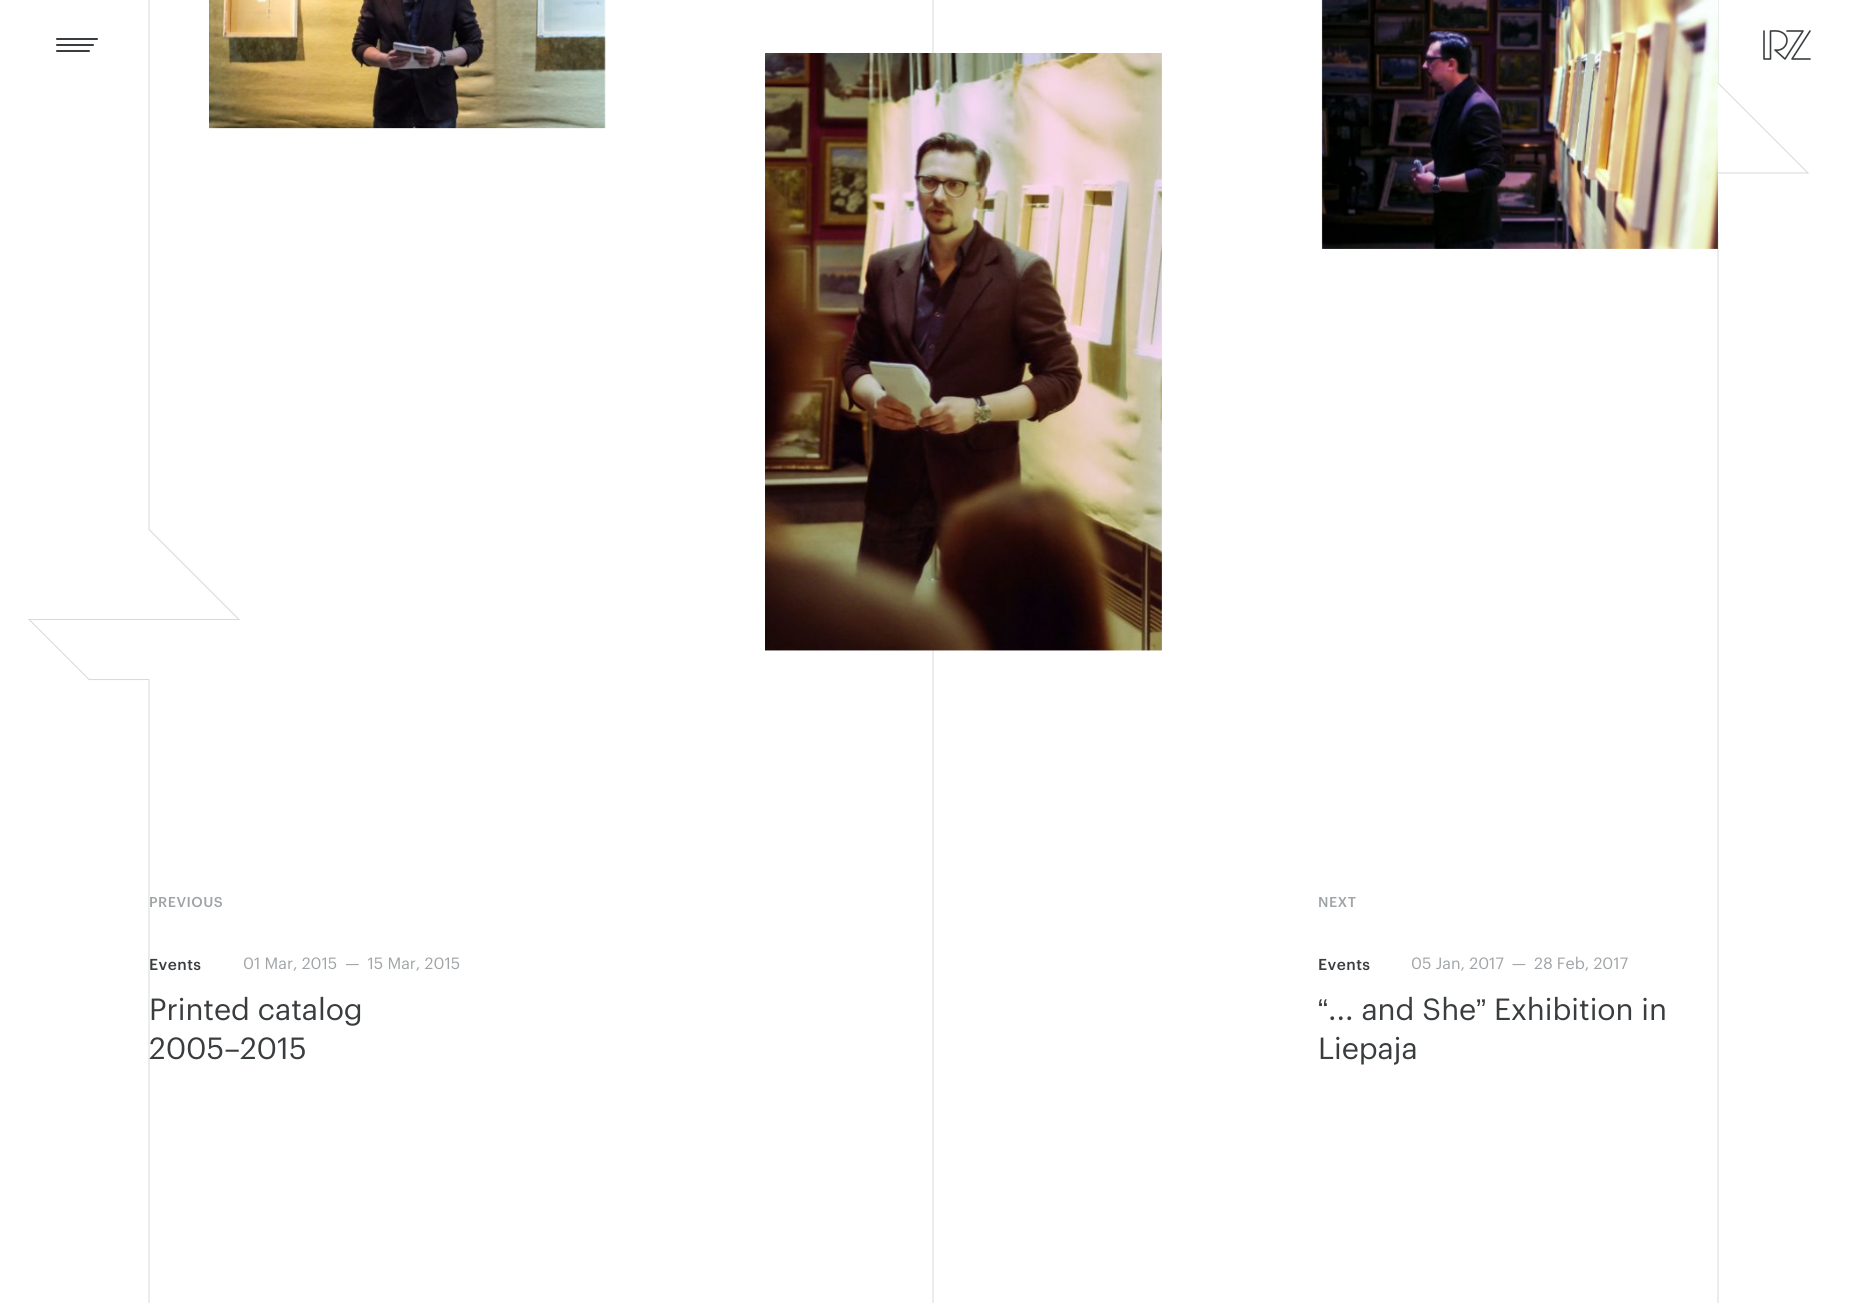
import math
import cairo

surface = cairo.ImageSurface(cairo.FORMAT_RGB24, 1867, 1303)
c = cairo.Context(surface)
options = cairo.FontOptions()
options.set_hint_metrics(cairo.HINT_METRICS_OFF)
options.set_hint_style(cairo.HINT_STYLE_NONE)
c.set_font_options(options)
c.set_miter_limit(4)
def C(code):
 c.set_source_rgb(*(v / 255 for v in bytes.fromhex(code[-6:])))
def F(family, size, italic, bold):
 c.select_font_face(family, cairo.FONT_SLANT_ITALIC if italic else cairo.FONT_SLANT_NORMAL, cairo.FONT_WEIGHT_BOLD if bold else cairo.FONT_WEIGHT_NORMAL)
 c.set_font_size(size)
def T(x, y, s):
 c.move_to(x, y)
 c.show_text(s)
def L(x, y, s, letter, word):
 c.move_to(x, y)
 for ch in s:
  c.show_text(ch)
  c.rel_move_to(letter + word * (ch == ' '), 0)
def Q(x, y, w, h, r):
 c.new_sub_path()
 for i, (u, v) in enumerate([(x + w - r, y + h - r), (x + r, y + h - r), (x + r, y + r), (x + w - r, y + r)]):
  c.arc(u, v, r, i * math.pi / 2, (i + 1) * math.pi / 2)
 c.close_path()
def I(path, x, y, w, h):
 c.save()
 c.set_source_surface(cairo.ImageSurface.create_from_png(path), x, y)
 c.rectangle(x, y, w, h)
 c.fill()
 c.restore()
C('ffffff')
c.paint()
c.new_path()
c.move_to(149,-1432.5)
c.line_to(149,-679)
c.line_to(29,-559)
c.line_to(134.5,-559)
c.line_to(101,-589)
c.line_to(101,-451)
c.line_to(149,-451)
c.line_to(149,529.5)
c.line_to(239,619.5)
c.line_to(29,619.5)
c.line_to(89,679.5)
c.line_to(149,679.5)
c.line_to(149,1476)
c.line_to(53,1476)
c.line_to(53,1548)
c.line_to(305,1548)
c.line_to(305,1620)
c.line_to(149,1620)
c.line_to(149,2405)
c.line_to(52,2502.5)
c.line_to(116.5,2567)
c.line_to(181.5,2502.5)
c.line_to(246,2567)
c.line_to(149,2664.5)
c.line_to(149,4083)
c.line_to(281,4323)
c.line_to(77,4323)
c.line_to(149,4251)
c.line_to(149,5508.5)
c.line_to(68.5,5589)
c.line_to(68.5,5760.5)
c.line_to(221,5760.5)
c.line_to(149,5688.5)
c.line_to(149,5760.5)
C('dadcdc')
c.set_line_width(1.1)
c.stroke()
C('3a3d3f')
Q(56,38,42,2,1)
c.fill()
Q(56,44,38,2,1)
c.fill()
Q(56,50,34,2,1)
c.fill()
c.new_path()
c.move_to(1718,-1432.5)
c.line_to(1718,-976)
c.line_to(1646,-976)
c.line_to(1646,-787.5)
c.line_to(1790,-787.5)
c.line_to(1790,-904)
c.line_to(1718,-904)
c.line_to(1718,83)
c.line_to(1808,173)
c.line_to(1598,173)
c.line_to(1658,233)
c.line_to(1718,233)
c.line_to(1718,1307)
c.line_to(1814,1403)
c.line_to(1766,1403)
c.line_to(1808,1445)
c.line_to(1664,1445)
c.line_to(1664,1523)
c.line_to(1718,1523)
c.line_to(1718,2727.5)
c.line_to(1850,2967.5)
c.line_to(1646,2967.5)
c.line_to(1718,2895.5)
c.line_to(1718,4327)
c.line_to(1621,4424)
c.line_to(1685.5,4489)
c.line_to(1750.5,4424)
c.line_to(1815,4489)
c.line_to(1718,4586)
c.line_to(1718,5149)
c.line_to(1766,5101)
c.line_to(1646,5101)
c.line_to(1646,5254.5)
c.line_to(1718,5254.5)
C('dadcdc')
c.stroke()
c.new_path()
c.move_to(1810,59)
c.line_to(1792,59)
c.line_to(1810,31)
c.move_to(1764,31)
c.line_to(1764,59)
c.line_to(1770.5,59)
c.line_to(1770.5,31)
c.curve_to(1774,31,1778,30.5,1781,32)
c.curve_to(1792,36.5,1786.5,52,1775,50)
c.line_to(1785,59)
c.line_to(1803,31)
c.line_to(1787,31)
C('3a3d3f')
c.set_line_width(1.6)
c.set_line_cap(cairo.LINE_CAP_ROUND)
c.set_line_join(cairo.LINE_JOIN_ROUND)
c.stroke()
c.new_path()
c.move_to(933,-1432.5)
c.line_to(933,-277)
c.line_to(1058,-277)
c.line_to(808,-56.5)
c.line_to(933,-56.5)
c.line_to(933,471)
c.line_to(1023,561)
c.line_to(813,561)
c.line_to(873,621)
c.line_to(933,621)
c.line_to(933,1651)
c.line_to(1029,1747)
c.line_to(981,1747)
c.line_to(1023,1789)
c.line_to(879,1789)
c.line_to(879,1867)
c.line_to(933,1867)
c.line_to(933,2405)
c.line_to(1058,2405)
c.line_to(808,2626)
c.line_to(933,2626)
c.line_to(933,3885)
c.line_to(813,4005)
c.line_to(918.5,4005)
c.line_to(885,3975)
c.line_to(885,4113)
c.line_to(933,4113)
c.line_to(933,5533)
c.line_to(852.5,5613.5)
c.line_to(852.5,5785)
c.line_to(1005,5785)
c.line_to(933,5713)
c.line_to(933,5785)
C('dadcdc')
c.set_line_width(1.1)
c.set_line_cap(cairo.LINE_CAP_BUTT)
c.set_line_join(cairo.LINE_JOIN_MITER)
c.stroke()
I('1.png',209,0,397,129)
I('2.png',765,53,397,598)
I('3.png',1321,0,397,249)
F('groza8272 Medium',14,0,0)
C('a0a4a7')
L(149,907,'PREVIOUS',.5,0)
F('groza8272 Medium',15.5,0,0)
C('3a3d3f')
L(149,970,'Events',.5,0)
F('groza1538',16,0,0)
C('a0a4a7')
T(243,969,'01 Mar, 2015 — 15 Mar, 2015')
F('groza1538',30,0,0)
C('3a3d3f')
T(149,1020,'Printed catalog')
T(149,1059,'2005–2015')
F('groza8272 Medium',14,0,0)
C('a0a4a7')
L(1318,907,'NEXT',.5,0)
F('groza8272 Medium',15.5,0,0)
C('3a3d3f')
L(1318,970,'Events',.5,0)
F('groza1538',16,0,0)
C('a0a4a7')
T(1411,969,'05 Jan, 2017 — 28 Feb, 2017')
F('Liberation Sans',30,0,0)
C('3a3d3f')
T(1318,1020,'“')
F('groza1538',30,0,0)
T(1328,1020,'... and She')
F('Liberation Sans',30,0,0)
T(1476,1020,'”')
F('groza1538',30,0,0)
T(1494,1020,'Exhibition in')
T(1318,1059,'Liepaja')
surface.write_to_png('o.png')
